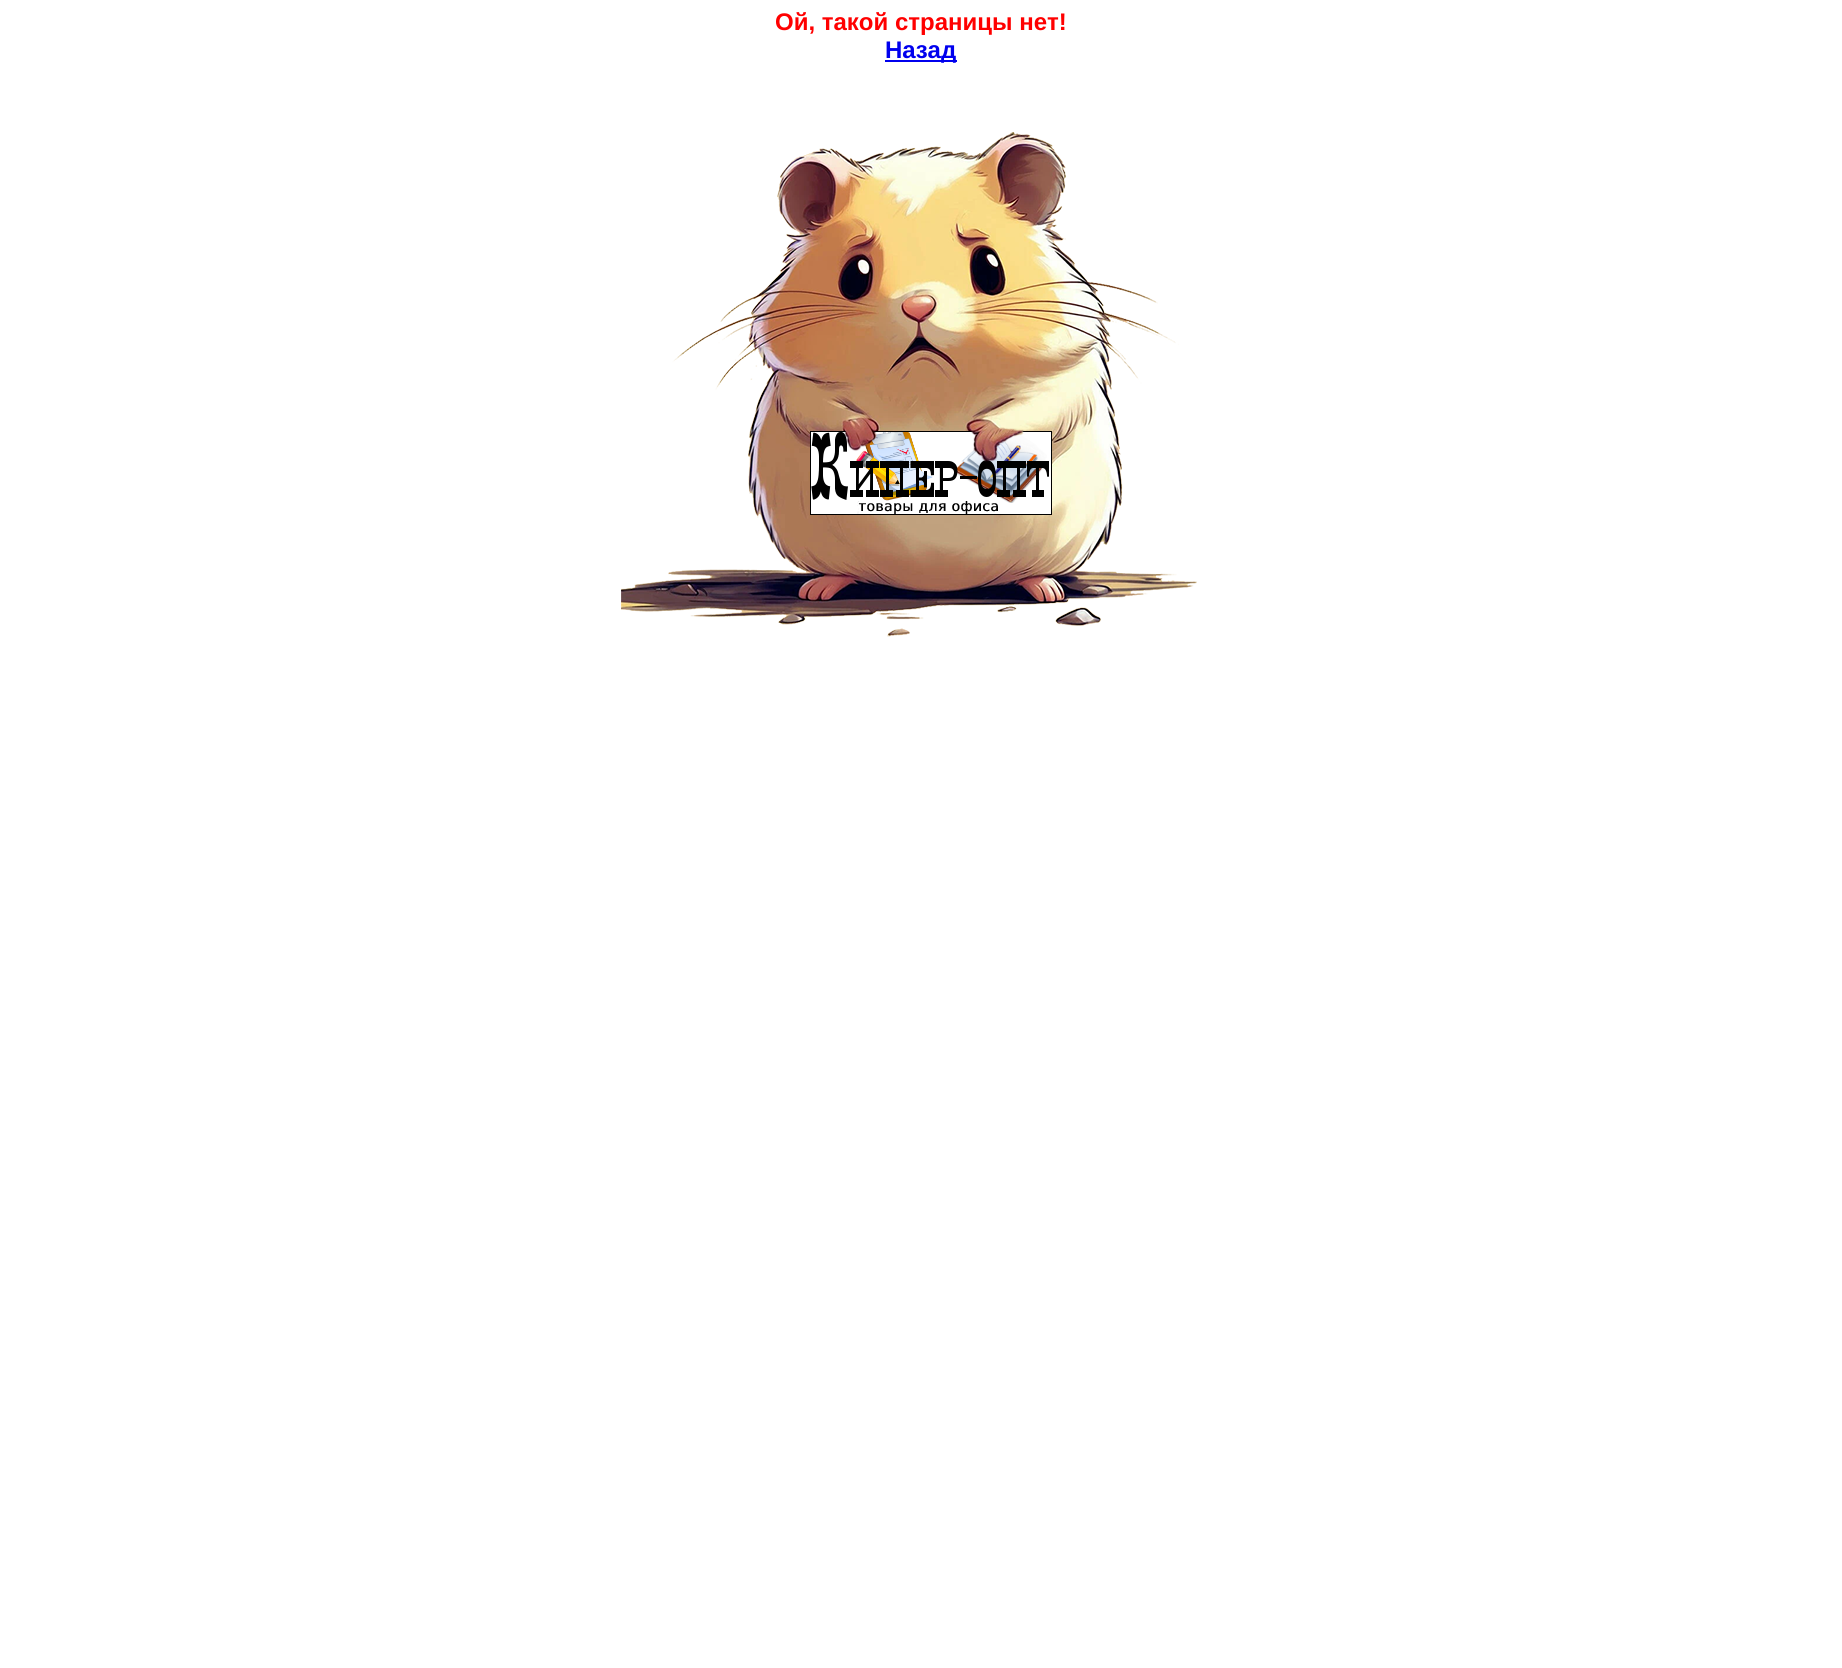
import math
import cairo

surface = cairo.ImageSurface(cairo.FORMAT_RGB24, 1842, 1668)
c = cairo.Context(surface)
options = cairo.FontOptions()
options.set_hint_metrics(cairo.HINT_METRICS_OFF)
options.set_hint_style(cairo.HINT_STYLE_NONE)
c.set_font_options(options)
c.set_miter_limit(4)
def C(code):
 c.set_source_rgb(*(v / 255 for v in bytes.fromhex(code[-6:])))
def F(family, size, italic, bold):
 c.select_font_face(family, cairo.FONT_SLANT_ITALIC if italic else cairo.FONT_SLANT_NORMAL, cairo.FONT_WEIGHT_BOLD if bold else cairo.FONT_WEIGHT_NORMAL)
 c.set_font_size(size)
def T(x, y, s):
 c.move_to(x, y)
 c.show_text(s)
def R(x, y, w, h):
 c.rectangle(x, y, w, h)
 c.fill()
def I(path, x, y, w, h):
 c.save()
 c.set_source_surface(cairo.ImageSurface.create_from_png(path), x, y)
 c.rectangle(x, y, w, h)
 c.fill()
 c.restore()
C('ffffff')
c.paint()
F('Liberation Sans',24,0,1)
C('ff0000')
T(775,30,'Ой, такой страницы нет!')
C('0000ee')
R(885,60,72,2)
T(885,58,'Назад')
I('1.png',621,132,576,505)
surface.write_to_png('o.png')
